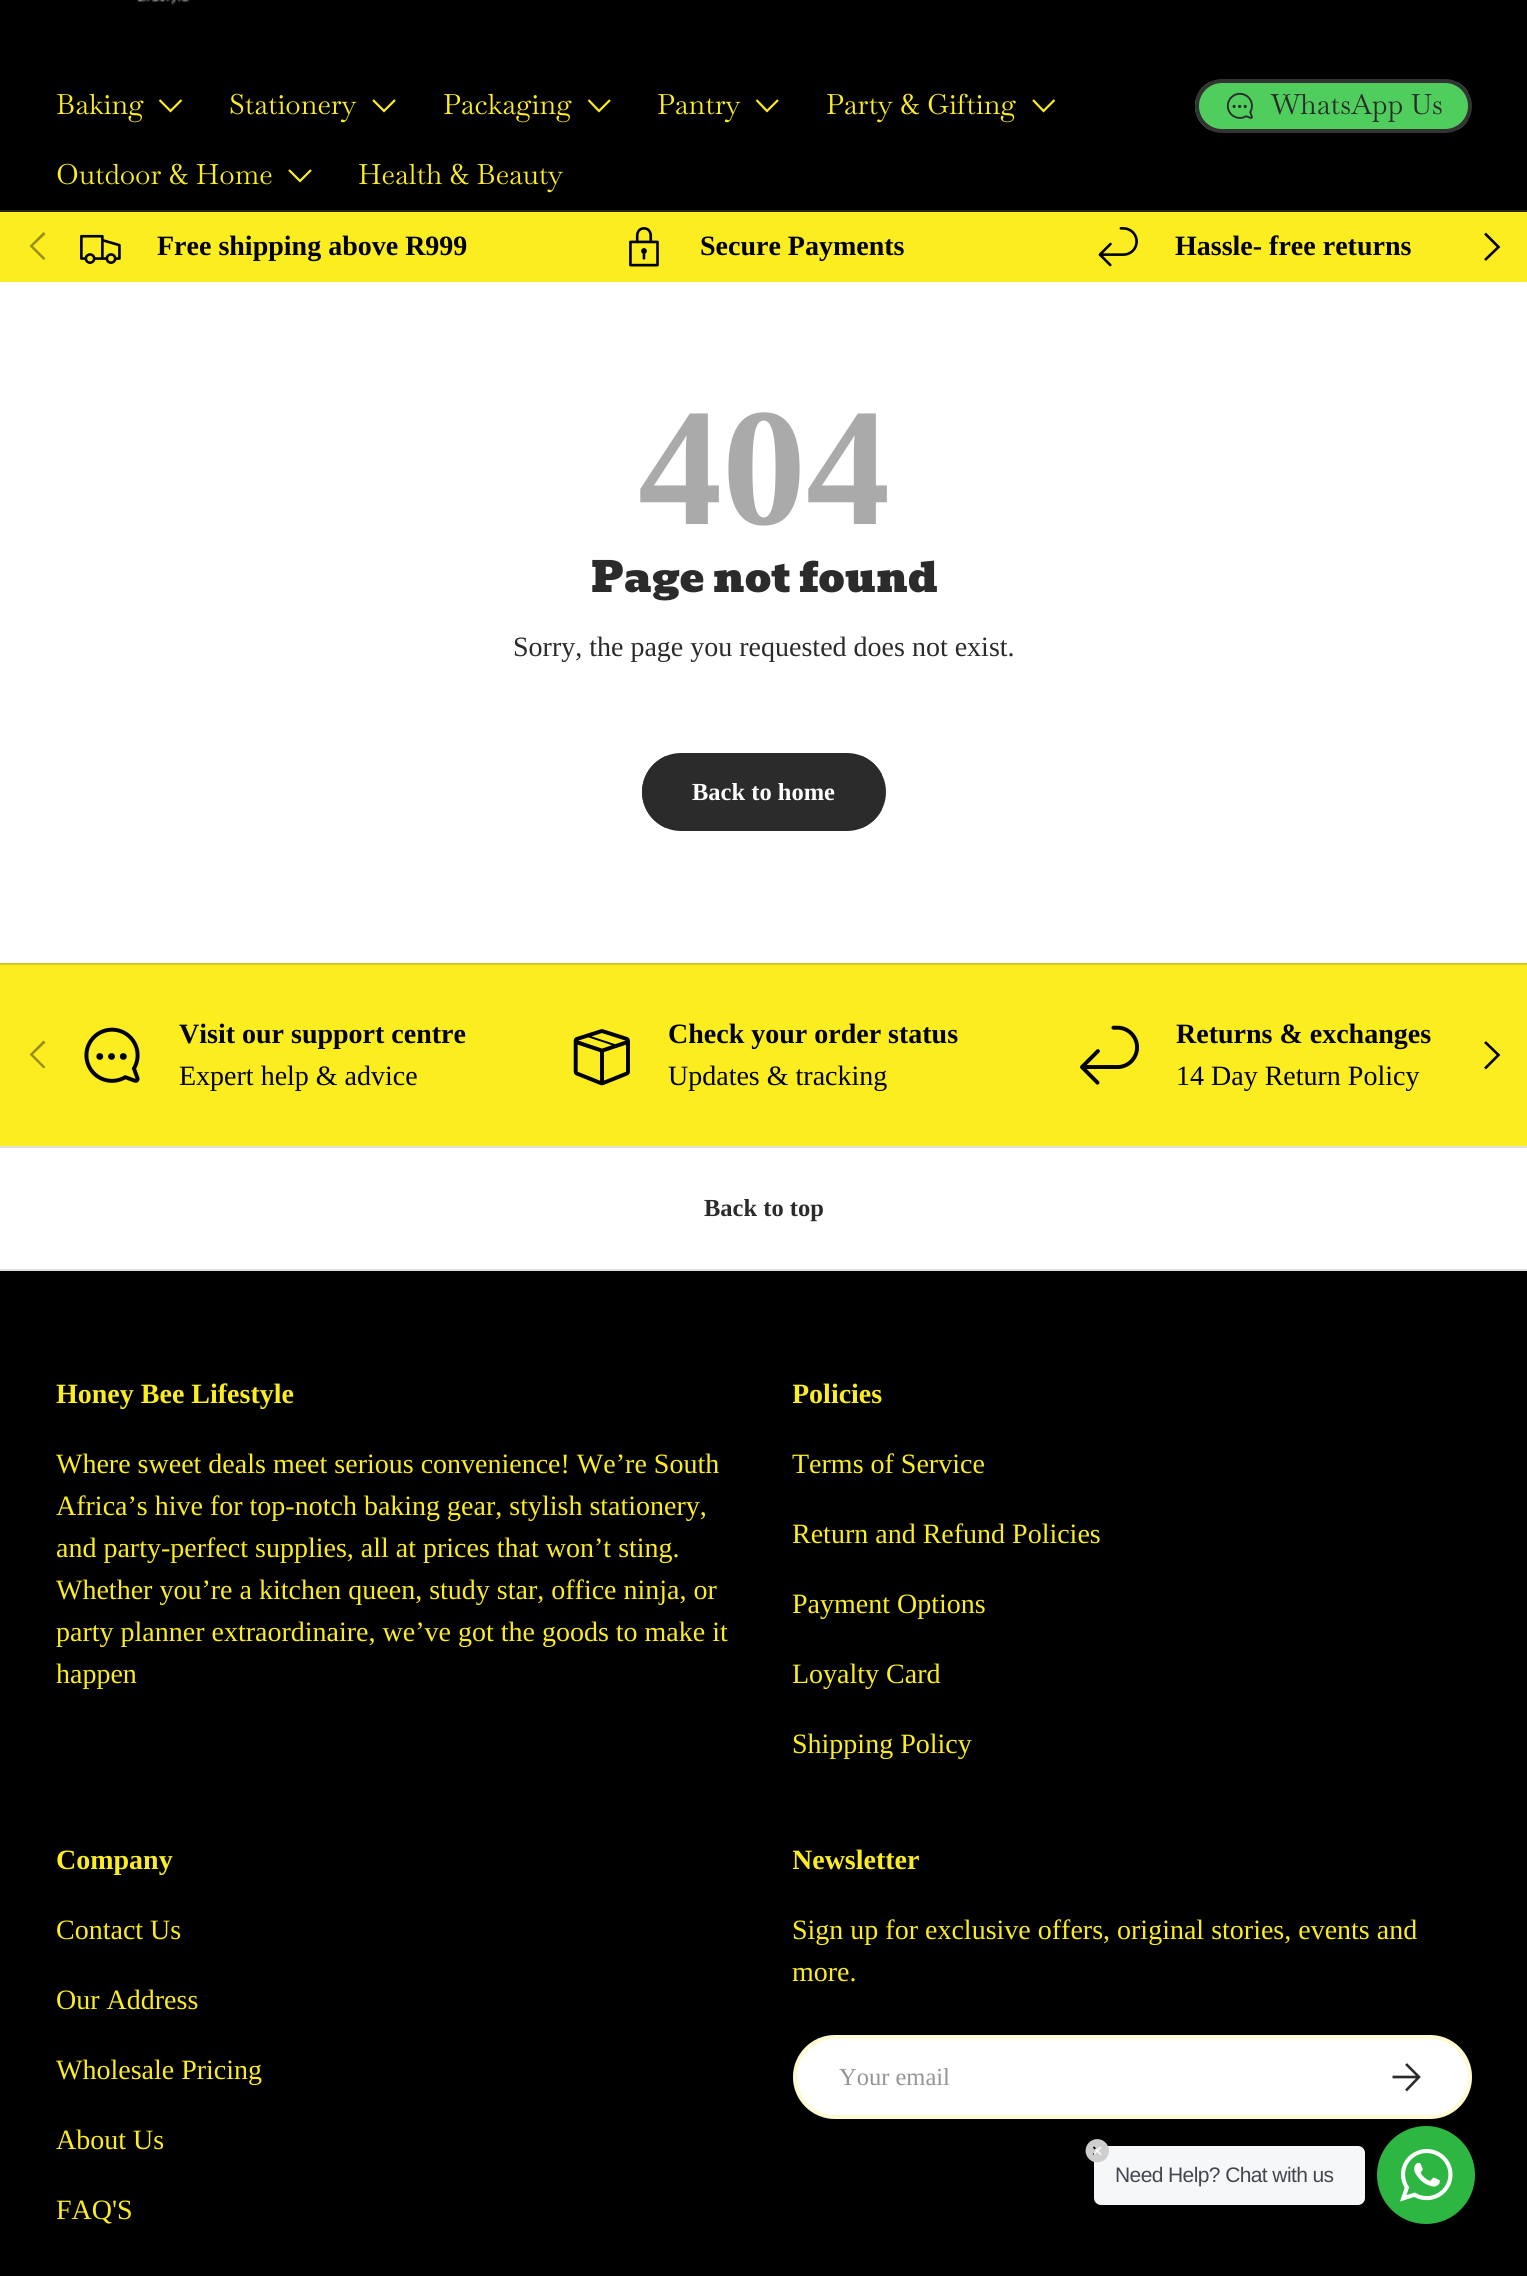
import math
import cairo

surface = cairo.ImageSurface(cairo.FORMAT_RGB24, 1527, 2276)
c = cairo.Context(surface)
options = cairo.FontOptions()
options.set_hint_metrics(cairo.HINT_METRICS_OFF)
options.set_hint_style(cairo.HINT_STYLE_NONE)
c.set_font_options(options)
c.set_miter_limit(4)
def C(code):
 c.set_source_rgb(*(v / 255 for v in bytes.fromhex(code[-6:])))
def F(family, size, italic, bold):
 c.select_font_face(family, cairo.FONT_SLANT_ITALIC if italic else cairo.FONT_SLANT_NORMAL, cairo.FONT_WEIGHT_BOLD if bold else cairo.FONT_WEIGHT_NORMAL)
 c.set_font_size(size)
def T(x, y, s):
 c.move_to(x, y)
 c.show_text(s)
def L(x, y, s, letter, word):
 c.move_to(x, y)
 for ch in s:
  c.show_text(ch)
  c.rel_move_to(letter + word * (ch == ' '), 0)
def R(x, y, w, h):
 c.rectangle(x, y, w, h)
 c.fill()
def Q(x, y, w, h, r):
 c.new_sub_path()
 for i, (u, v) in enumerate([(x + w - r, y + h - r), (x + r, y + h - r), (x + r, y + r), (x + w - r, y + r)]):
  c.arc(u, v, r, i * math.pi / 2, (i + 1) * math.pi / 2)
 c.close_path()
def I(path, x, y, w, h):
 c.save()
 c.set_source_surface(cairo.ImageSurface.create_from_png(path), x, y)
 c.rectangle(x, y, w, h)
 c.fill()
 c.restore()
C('ffffff')
c.paint()
C('000000')
R(0,0,1527,210)
C('262405')
R(0,210,1527,2)
I('1.png',136,0,54,6)
F('Baskervville',28,0,0)
C('fbed20')
T(56,114,'Baking')
c.new_path()
c.move_to(181.5,100)
c.line_to(170.5,111)
c.line_to(159.5,100)
c.set_line_width(2.2)
c.stroke()
T(229,114,'Stationery')
c.new_path()
c.move_to(395,100)
c.line_to(384,111)
c.line_to(373,100)
c.stroke()
T(443,114,'Packaging')
c.new_path()
c.move_to(610,100)
c.line_to(599,111)
c.line_to(588.5,100)
c.stroke()
T(657,114,'Pantry')
c.new_path()
c.move_to(778,100)
c.line_to(767,111)
c.line_to(756.5,100)
c.stroke()
T(826,114,'Party & Gifting')
c.new_path()
c.move_to(1054.5,100)
c.line_to(1043.5,111)
c.line_to(1033,100)
c.stroke()
T(56,184,'Outdoor & Home')
c.new_path()
c.move_to(311,170)
c.line_to(300,181)
c.line_to(289,170)
c.stroke()
T(358,184,'Health & Beauty')
c.save()
Q(1195,79,277,54,27)
c.clip()
gradient = cairo.LinearGradient(678,10,1450,202)
gradient.add_color_stop_rgba(.6,0.329,0.729,0.373,1)
gradient.add_color_stop_rgba(.6,0.31,0.808,0.365,1)
gradient.add_color_stop_rgba(1,0.31,0.808,0.365,1)
c.set_source(gradient)
R(1195,82,273,48)
c.restore()
Q(1197,81,273,50,25)
C('333333')
c.set_line_width(4)
c.stroke()
I('2.png',1226,92,27,27)
C('2a2b2a')
T(1271,114,'WhatsApp Us')
C('fbed20')
R(0,212,1527,70)
C('978e13')
c.new_path()
c.move_to(29.5,246)
c.line_to(43.5,232)
c.line_to(45.5,234)
c.line_to(33,246)
c.line_to(45.5,258.5)
c.line_to(43.5,260)
c.close_path()
c.fill()
c.new_path()
c.move_to(1485,233.5)
c.line_to(1498.5,247)
c.line_to(1485,260)
C('000000')
c.set_line_width(2.6)
c.stroke()
I('3.png',80,234,41,30)
F('Liberation Serif',28,0,1)
T(157,255,'Free shipping above R999')
I('4.png',629,227,30,40)
T(700,255,'Secure Payments')
I('5.png',1098,227,40,40)
T(1175,255,'Hassle- free returns')
F('Liberation Serif',168,0,1)
C('aaaaaa')
T(638,524,'404')
F('Bevan',41.25,0,0)
C('2a2b2a')
T(591,592,'Page not found')
F('Liberation Serif',28,0,0)
T(513,656,'Sorry, the page you requested does not exist.')
c.save()
Q(642,753,244,78,39)
c.clip()
gradient = cairo.LinearGradient(186,707,870,877)
gradient.add_color_stop_rgba(.6,0.322,0.325,0.322,1)
gradient.add_color_stop_rgba(.6,0.165,0.169,0.165,1)
gradient.add_color_stop_rgba(1,0.165,0.169,0.165,1)
c.set_source(gradient)
R(642,756,240,72)
c.restore()
Q(644,755,240,74,37)
c.set_line_width(4)
c.stroke()
F('Liberation Serif',24.5,0,1)
C('ffffff')
T(692,800,'Back to home')
C('fbed20')
R(0,965,1527,181)
C('d5c91b')
R(0,963,1527,2)
I('6.png',84,1027,56,56)
F('Liberation Serif',28,0,1)
C('000000')
T(179,1043,'Visit our support centre')
F('Liberation Serif',28,0,0)
T(179,1085,'Expert help & advice')
I('7.png',573,1029,57,57)
F('Liberation Serif',28,0,1)
T(668,1043,'Check your order status')
F('Liberation Serif',28,0,0)
T(668,1085,'Updates & tracking')
I('8.png',1080,1025,59,60)
F('Liberation Serif',28,0,1)
T(1176,1043,'Returns & exchanges')
F('Liberation Serif',28,0,0)
T(1176,1085,'14 Day Return Policy')
C('978e13')
c.new_path()
c.move_to(29.5,1054.5)
c.line_to(43.5,1040.5)
c.line_to(45.5,1042.5)
c.line_to(33,1054.5)
c.line_to(45.5,1067)
c.line_to(43.5,1068.5)
c.close_path()
c.fill()
c.new_path()
c.move_to(1485,1042)
c.line_to(1498.5,1055)
c.line_to(1485,1068.5)
C('000000')
c.set_line_width(2.6)
c.stroke()
C('dfdfdf')
R(0,1146,1527,2)
R(0,1269,1527,2)
F('Liberation Serif',24.5,0,1)
C('2a2b2a')
T(704,1216,'Back to top')
C('000000')
R(0,1271,1527,1005)
F('Liberation Serif',28,0,1)
C('fbed20')
T(56,1403,'Honey Bee Lifestyle')
F('Liberation Serif',28,0,0)
T(56,1473,'Where sweet deals meet serious convenience! We’re South')
T(56,1515,'Africa’s hive for top-notch baking gear, stylish stationery,')
T(56,1557,'and party-perfect supplies, all at prices that won’t sting.')
T(56,1599,'Whether you’re a kitchen queen, study star, office ninja, or')
T(56,1641,'party planner extraordinaire, we’ve got the goods to make it')
T(56,1683,'happen')
c.save()
c.rectangle(793,1374,679,70)
c.clip()
F('Liberation Serif',28,0,1)
T(792,1403,'Policies')
c.restore()
T(792,1473,'Terms of Service')
T(792,1543,'Return and Refund Policies')
T(792,1613,'Payment Options')
T(792,1683,'Loyalty Card')
T(792,1753,'Shipping Policy')
F('Liberation Serif',28,0,1)
T(56,1869,'Company')
F('Liberation Serif',28,0,0)
T(56,1939,'Contact Us')
T(56,2009,'Our Address')
T(56,2079,'Wholesale Pricing')
T(56,2149,'About Us')
T(56,2219,'FAQ\'S')
c.save()
c.rectangle(793,1839,679,70)
c.clip()
F('Liberation Serif',28,0,1)
T(792,1869,'Newsletter')
c.restore()
T(792,1939,'Sign up for exclusive offers, original stories, events and')
T(792,1981,'more.')
C('ffffff')
Q(793,2035,679,84,42)
c.fill()
Q(795,2037,675,80,40)
c.set_source_rgba(0.984,0.929,0.125,0.2)
c.set_line_width(4)
c.stroke()
F('Liberation Serif',24.5,0,0)
C('959595')
T(839,2085,'Your email')
c.new_path()
c.move_to(1392.5,2077)
c.line_to(1418,2077)
c.move_to(1406,2064)
c.line_to(1419,2077)
c.line_to(1406,2090.5)
C('2a2b2a')
c.set_line_width(2.6)
c.stroke()
C('f5f7f9')
Q(1094,2146,271,59,7)
c.fill()
I('9.png',1085,2139,24,24)
F('Liberation Sans',21,0,0)
C('43474e')
L(1115,2182,'Need Help? Chat with us',-.6,0)
C('2db742')
c.new_path()
c.arc(1426,2175,49,0,2 * math.pi)
c.fill()
I('10.png',1400,2149,53,53)
surface.write_to_png('o.png')
